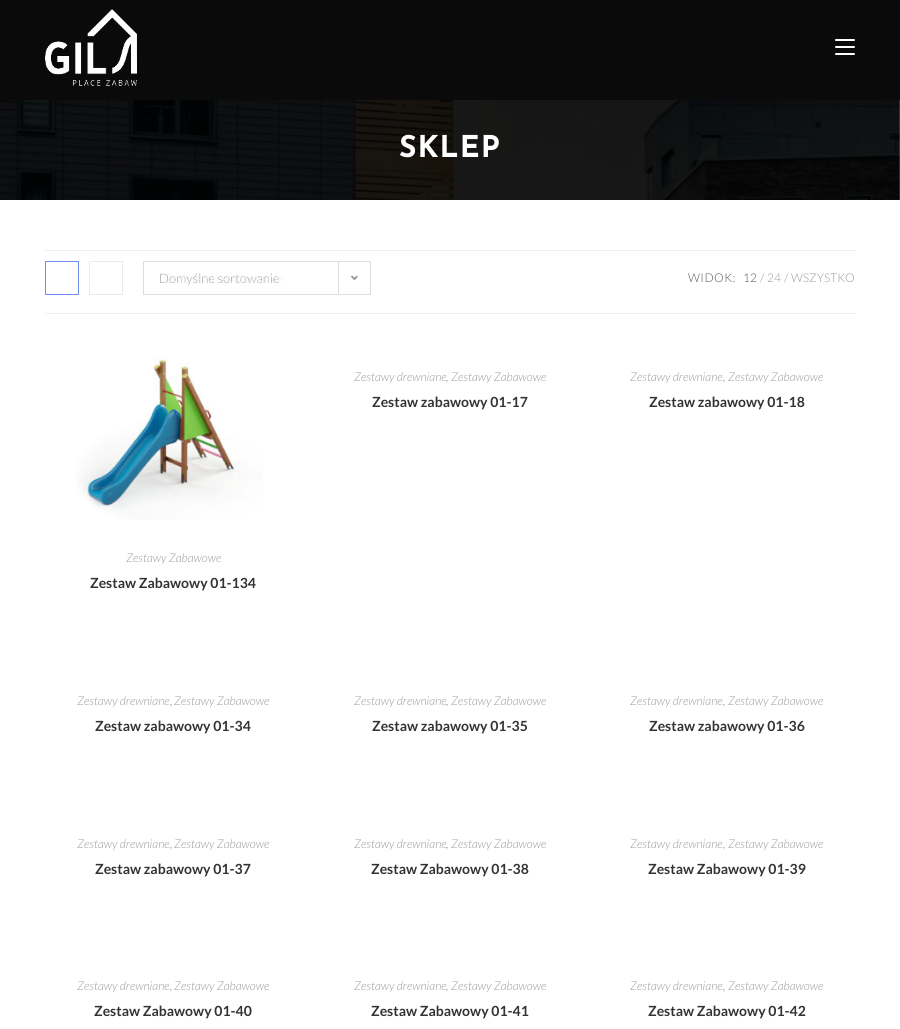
import math
import cairo

surface = cairo.ImageSurface(cairo.FORMAT_RGB24, 900, 1029)
c = cairo.Context(surface)
options = cairo.FontOptions()
options.set_hint_metrics(cairo.HINT_METRICS_OFF)
options.set_hint_style(cairo.HINT_STYLE_NONE)
c.set_font_options(options)
c.set_miter_limit(4)
def C(code):
 c.set_source_rgb(*(v / 255 for v in bytes.fromhex(code[-6:])))
def F(family, size, italic, bold):
 c.select_font_face(family, cairo.FONT_SLANT_ITALIC if italic else cairo.FONT_SLANT_NORMAL, cairo.FONT_WEIGHT_BOLD if bold else cairo.FONT_WEIGHT_NORMAL)
 c.set_font_size(size)
def T(x, y, s):
 c.move_to(x, y)
 c.show_text(s)
def L(x, y, s, letter, word):
 c.move_to(x, y)
 for ch in s:
  c.show_text(ch)
  c.rel_move_to(letter + word * (ch == ' '), 0)
def R(x, y, w, h):
 c.rectangle(x, y, w, h)
 c.fill()
def Q(x, y, w, h, r):
 c.new_sub_path()
 for i, (u, v) in enumerate([(x + w - r, y + h - r), (x + r, y + h - r), (x + r, y + r), (x + w - r, y + r)]):
  c.arc(u, v, r, i * math.pi / 2, (i + 1) * math.pi / 2)
 c.close_path()
def I(path, x, y, w, h):
 c.save()
 c.set_source_surface(cairo.ImageSurface.create_from_png(path), x, y)
 c.rectangle(x, y, w, h)
 c.fill()
 c.restore()
C('ffffff')
c.paint()
C('0a0a0a')
R(0,0,900,100)
I('1.png',45,9,92,77)
C('ffffff')
Q(835,46,20,2,1)
c.fill()
Q(835,39,20,2,1)
c.fill()
Q(835,53,20,2,1)
c.fill()
I('2.png',0,100,900,100)
F('Josefin Sans',30,0,1)
L(399,157,'SKLEP',1,0)
C('eeeeee')
R(45,250,810,1)
R(45,313,810,1)
c.rectangle(45.5,261.5,33,33)
C('6e8fef')
c.set_line_width(1)
c.stroke()
c.rectangle(89.5,261.5,33,33)
C('eaeaea')
c.stroke()
c.rectangle(143.5,261.5,227,33)
C('dddddd')
c.stroke()
F('Lato Light',13,0,0)
C('999999')
T(159,283,'Domyślne sortowanie')
C('dddddd')
R(338,262,1,32)
I('3.png',351,275,7,5)
c.new_path()
c.move_to(358,276)
c.line_to(362,280)
c.line_to(366,276)
C('ffffff')
c.set_line_width(2)
c.stroke()
C('eeeeee')
T(163,283,'Domyślne sortowanie')
F('Lato Light',12,0,0)
C('555555')
L(688,282,'WIDOK:',.5,0)
T(743,282,'12')
C('999999')
T(760,282,'/')
T(767,282,'24')
T(784,282,'/')
T(791,282,'WSZYSTKO')
F('Lato Light',12,1,0)
T(354,381,'Zestawy drewniane')
C('777777')
T(446,381,',')
C('999999')
T(451,381,'Zestawy Zabawowe')
F('Lato',14,0,1)
C('333333')
T(372,407,'Zestaw zabawowy 01-17')
F('Lato Light',12,1,0)
C('999999')
T(630,381,'Zestawy drewniane')
C('777777')
T(723,381,',')
C('999999')
T(728,381,'Zestawy Zabawowe')
F('Lato',14,0,1)
C('333333')
T(649,407,'Zestaw zabawowy 01-18')
I('4.png',76,355,186,165)
I('5.png',262,362,1,155)
F('Lato Light',12,1,0)
C('999999')
T(126,562,'Zestawy Zabawowe')
F('Lato',14,0,1)
C('333333')
T(90,588,'Zestaw Zabawowy 01-134')
F('Lato Light',12,1,0)
C('999999')
T(77,705,'Zestawy drewniane')
C('777777')
T(170,705,',')
C('999999')
T(174,705,'Zestawy Zabawowe')
F('Lato',14,0,1)
C('333333')
T(95,731,'Zestaw zabawowy 01-34')
F('Lato Light',12,1,0)
C('999999')
T(354,705,'Zestawy drewniane')
C('777777')
T(446,705,',')
C('999999')
T(451,705,'Zestawy Zabawowe')
F('Lato',14,0,1)
C('333333')
T(372,731,'Zestaw zabawowy 01-35')
F('Lato Light',12,1,0)
C('999999')
T(630,705,'Zestawy drewniane')
C('777777')
T(723,705,',')
C('999999')
T(728,705,'Zestawy Zabawowe')
F('Lato',14,0,1)
C('333333')
T(649,731,'Zestaw zabawowy 01-36')
F('Lato Light',12,1,0)
C('999999')
T(77,848,'Zestawy drewniane')
C('777777')
T(170,848,',')
C('999999')
T(174,848,'Zestawy Zabawowe')
F('Lato',14,0,1)
C('333333')
T(95,874,'Zestaw zabawowy 01-37')
F('Lato Light',12,1,0)
C('999999')
T(354,848,'Zestawy drewniane')
C('777777')
T(446,848,',')
C('999999')
T(451,848,'Zestawy Zabawowe')
F('Lato',14,0,1)
C('333333')
T(371,874,'Zestaw Zabawowy 01-38')
F('Lato Light',12,1,0)
C('999999')
T(630,848,'Zestawy drewniane')
C('777777')
T(723,848,',')
C('999999')
T(728,848,'Zestawy Zabawowe')
F('Lato',14,0,1)
C('333333')
T(648,874,'Zestaw Zabawowy 01-39')
F('Lato Light',12,1,0)
C('999999')
T(77,990,'Zestawy drewniane')
C('777777')
T(170,990,',')
C('999999')
T(174,990,'Zestawy Zabawowe')
F('Lato',14,0,1)
C('333333')
T(94,1016,'Zestaw Zabawowy 01-40')
F('Lato Light',12,1,0)
C('999999')
T(354,990,'Zestawy drewniane')
C('777777')
T(446,990,',')
C('999999')
T(451,990,'Zestawy Zabawowe')
F('Lato',14,0,1)
C('333333')
T(371,1016,'Zestaw Zabawowy 01-41')
F('Lato Light',12,1,0)
C('999999')
T(630,990,'Zestawy drewniane')
C('777777')
T(723,990,',')
C('999999')
T(728,990,'Zestawy Zabawowe')
F('Lato',14,0,1)
C('333333')
T(648,1016,'Zestaw Zabawowy 01-42')
surface.write_to_png('o.png')
